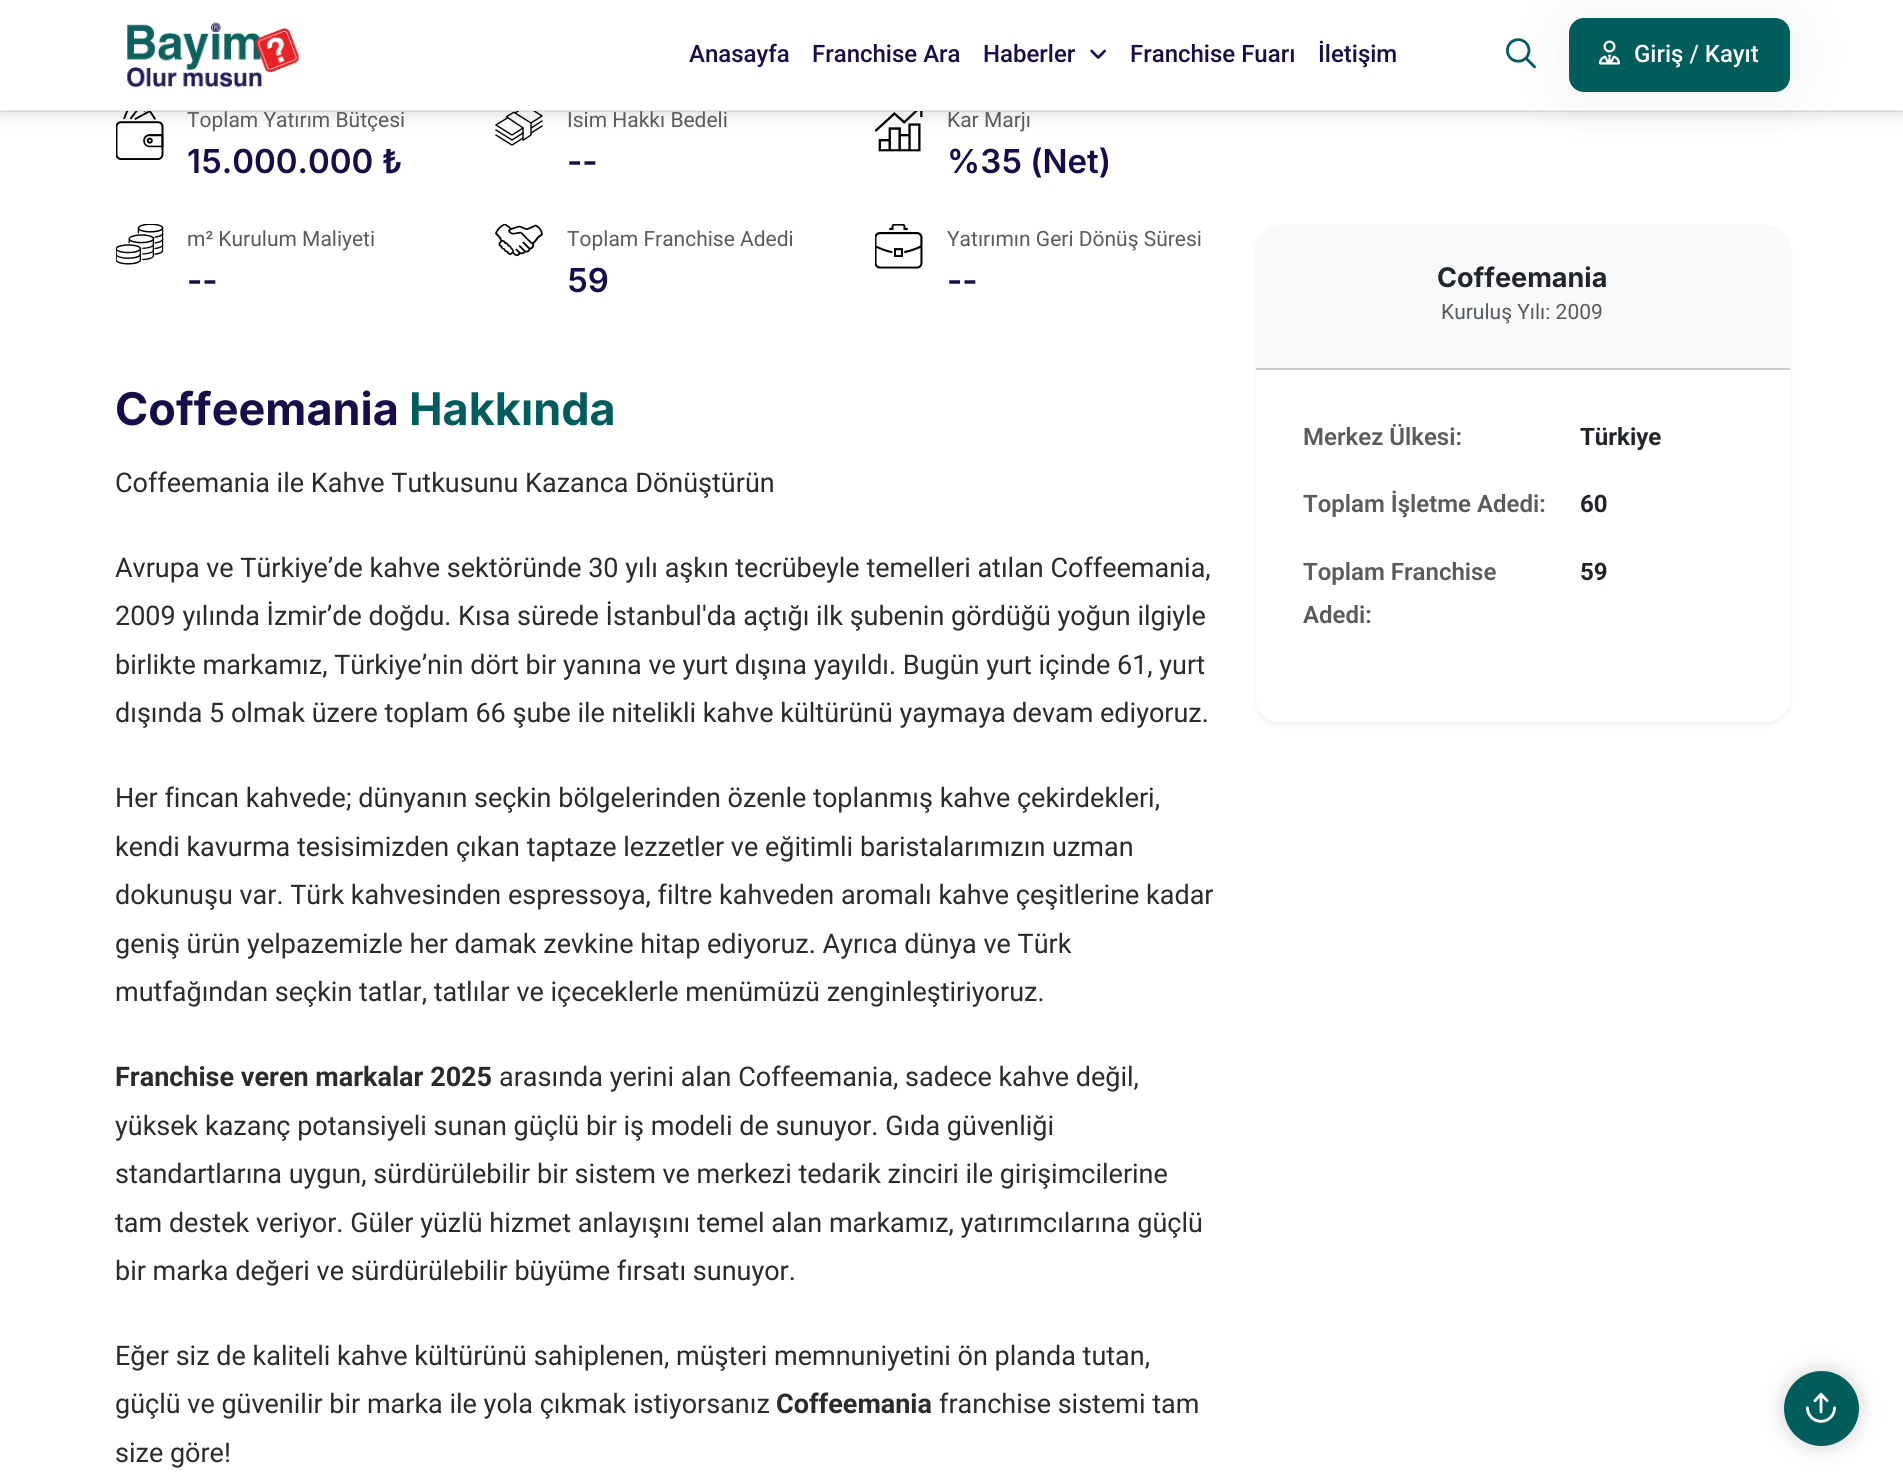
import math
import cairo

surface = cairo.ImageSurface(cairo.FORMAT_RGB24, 1903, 1476)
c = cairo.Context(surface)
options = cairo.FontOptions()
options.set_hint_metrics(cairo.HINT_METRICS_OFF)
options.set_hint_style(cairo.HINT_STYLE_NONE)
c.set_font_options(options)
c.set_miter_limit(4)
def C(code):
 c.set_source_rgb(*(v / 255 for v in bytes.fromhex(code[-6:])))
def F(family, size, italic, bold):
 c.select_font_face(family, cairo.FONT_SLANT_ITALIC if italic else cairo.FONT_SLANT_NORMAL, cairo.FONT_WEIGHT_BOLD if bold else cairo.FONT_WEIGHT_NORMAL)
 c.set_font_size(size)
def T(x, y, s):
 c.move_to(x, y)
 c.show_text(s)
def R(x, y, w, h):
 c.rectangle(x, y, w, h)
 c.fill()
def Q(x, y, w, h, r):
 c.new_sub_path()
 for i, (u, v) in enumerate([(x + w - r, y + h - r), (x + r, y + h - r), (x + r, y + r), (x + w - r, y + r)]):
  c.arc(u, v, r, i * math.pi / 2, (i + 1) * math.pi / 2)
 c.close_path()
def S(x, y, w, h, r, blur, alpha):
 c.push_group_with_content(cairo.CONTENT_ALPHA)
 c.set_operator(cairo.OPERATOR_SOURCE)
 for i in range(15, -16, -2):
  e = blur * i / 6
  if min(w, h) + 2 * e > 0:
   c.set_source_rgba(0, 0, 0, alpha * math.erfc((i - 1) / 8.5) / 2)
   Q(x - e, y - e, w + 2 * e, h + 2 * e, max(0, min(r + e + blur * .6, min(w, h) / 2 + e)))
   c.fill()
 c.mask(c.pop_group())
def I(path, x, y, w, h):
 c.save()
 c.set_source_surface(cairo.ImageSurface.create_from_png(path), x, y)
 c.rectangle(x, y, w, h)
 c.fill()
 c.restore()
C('ffffff')
c.paint()
I('5.png',116,111,48,49)
I('6.png',495,111,48,35)
I('7.png',875,111,48,41)
C('000000')
S(0,0,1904,111,0,11,.17)
F('Roboto',21,0,0)
C('595c5f')
T(567,127,'İsim Hakkı Bedeli')
C('ffffff')
R(0,0,1903,111)
c.set_source_rgba(0,0,0,0.08)
R(0,110,1903,2)
I('1.png',127,22,173,66)
F('Roboto Medium',24,0,0)
C('160e4b')
T(689,62,'Anasayfa')
T(812,62,'Franchise Ara')
T(983,62,'Haberler')
I('2.png',1090,49,16,10)
T(1130,62,'Franchise Fuarı')
T(1318,62,'İletişim')
I('3.png',1506,38,30,31)
C('000000')
S(1562,11,235,88,23,30,.05)
C('005d5b')
Q(1569,18,221,74,15)
c.fill()
I('4.png',1599,40,21,25)
C('ffffff')
T(1634,62,'Giriş / Kayıt')
F('Roboto',21,0,0)
C('595c5f')
T(187,127,'Toplam Yatırım Bütçesi')
F('Inter SemiBold',33,0,0)
C('160e4b')
T(187,173,'15.000.000 ₺')
T(567,173,'--')
F('Roboto',21,0,0)
C('595c5f')
T(947,127,'Kar Marjı')
F('Inter SemiBold',33,0,0)
C('160e4b')
T(947,173,'%35 (Net)')
I('8.png',116,224,48,41)
F('Roboto',21,0,0)
C('595c5f')
T(187,246,'m² Kurulum Maliyeti')
F('Inter SemiBold',33,0,0)
C('160e4b')
T(187,292,'--')
I('9.png',495,224,48,33)
F('Roboto',21,0,0)
C('595c5f')
T(567,246,'Toplam Franchise Adedi')
F('Inter SemiBold',33,0,0)
C('160e4b')
T(567,292,'59')
I('10.png',875,224,48,45)
F('Roboto',21,0,0)
C('595c5f')
T(947,246,'Yatırımın Geri Dönüş Süresi')
F('Inter SemiBold',33,0,0)
C('160e4b')
T(947,292,'--')
F('Inter',45,0,1)
T(115,425,'Coffeemania')
C('005d5b')
T(409,425,'Hakkında')
F('Roboto',27,0,0)
C('2b2b2b')
T(115,492,'Coffeemania ile Kahve Tutkusunu Kazanca Dönüştürün')
T(115,577,'Avrupa ve Türkiye’de kahve sektöründe 30 yılı aşkın tecrübeyle temelleri atılan Coffeemania,')
T(115,625,'2009 yılında İzmir’de doğdu. Kısa sürede İstanbul\'da açtığı ilk şubenin gördüğü yoğun ilgiyle')
T(115,674,'birlikte markamız, Türkiye’nin dört bir yanına ve yurt dışına yayıldı. Bugün yurt içinde 61, yurt')
T(115,722,'dışında 5 olmak üzere toplam 66 şube ile nitelikli kahve kültürünü yaymaya devam ediyoruz.')
T(115,807,'Her fincan kahvede; dünyanın seçkin bölgelerinden özenle toplanmış kahve çekirdekleri,')
T(115,856,'kendi kavurma tesisimizden çıkan taptaze lezzetler ve eğitimli baristalarımızın uzman')
T(115,904,'dokunuşu var. Türk kahvesinden espressoya, filtre kahveden aromalı kahve çeşitlerine kadar')
T(115,953,'geniş ürün yelpazemizle her damak zevkine hitap ediyoruz. Ayrıca dünya ve Türk')
T(115,1001,'mutfağından seçkin tatlar, tatlılar ve içeceklerle menümüzü zenginleştiriyoruz.')
F('Roboto',27,0,1)
T(115,1086,'Franchise veren markalar 2025')
F('Roboto',27,0,0)
T(499,1086,'arasında yerini alan Coffeemania, sadece kahve değil,')
T(115,1135,'yüksek kazanç potansiyeli sunan güçlü bir iş modeli de sunuyor. Gıda güvenliği')
T(115,1183,'standartlarına uygun, sürdürülebilir bir sistem ve merkezi tedarik zinciri ile girişimcilerine')
T(115,1232,'tam destek veriyor. Güler yüzlü hizmet anlayışını temel alan markamız, yatırımcılarına güçlü')
T(115,1280,'bir marka değeri ve sürdürülebilir büyüme fırsatı sunuyor.')
T(115,1365,'Eğer siz de kaliteli kahve kültürünü sahiplenen, müşteri memnuniyetini ön planda tutan,')
T(115,1413,'güçlü ve güvenilir bir marka ile yola çıkmak istiyorsanız')
F('Roboto',27,0,1)
T(776,1413,'Coffeemania')
F('Roboto',27,0,0)
T(939,1413,'franchise sistemi tam')
T(115,1462,'size göre!')
C('000000')
S(1256,228,534,497,24,3,.07)
C('ffffff')
Q(1256,225,534,497,24)
c.fill()
C('f8f9fa')
c.new_path()
c.move_to(1280,225)
c.line_to(1766,225)
c.curve_to(1779.5,225,1790,235.5,1790,249)
c.line_to(1790,368)
c.line_to(1256,368)
c.line_to(1256,249)
c.curve_to(1256,235.5,1266.5,225,1280,225)
c.close_path()
c.fill()
F('Inter',27,0,1)
C('212529')
T(1437,287,'Coffeemania')
F('Roboto',21,0,0)
C('595c5f')
T(1441,319,'Kuruluş Yılı: 2009')
C('c8c9ca')
R(1256,368,534,2)
F('Roboto SemiBold',24,0,0)
C('595c5f')
T(1303,445,'Merkez Ülkesi:')
F('Roboto',24,0,1)
C('212529')
T(1580,445,'Türkiye')
F('Roboto SemiBold',24,0,0)
C('595c5f')
T(1303,512,'Toplam İşletme Adedi:')
F('Roboto',24,0,1)
C('212529')
T(1580,512,'60')
F('Roboto SemiBold',24,0,0)
C('595c5f')
T(1303,580,'Toplam Franchise')
T(1303,623,'Adedi:')
F('Roboto',24,0,1)
C('212529')
T(1580,580,'59')
C('000000')
S(1784,1371,75,75,37.5,11,.17)
C('005d5b')
c.arc(1821.5,1408.5,37.5,0,2 * math.pi)
c.fill()
I('11.png',1806,1392,30,31)
surface.write_to_png('o.png')
